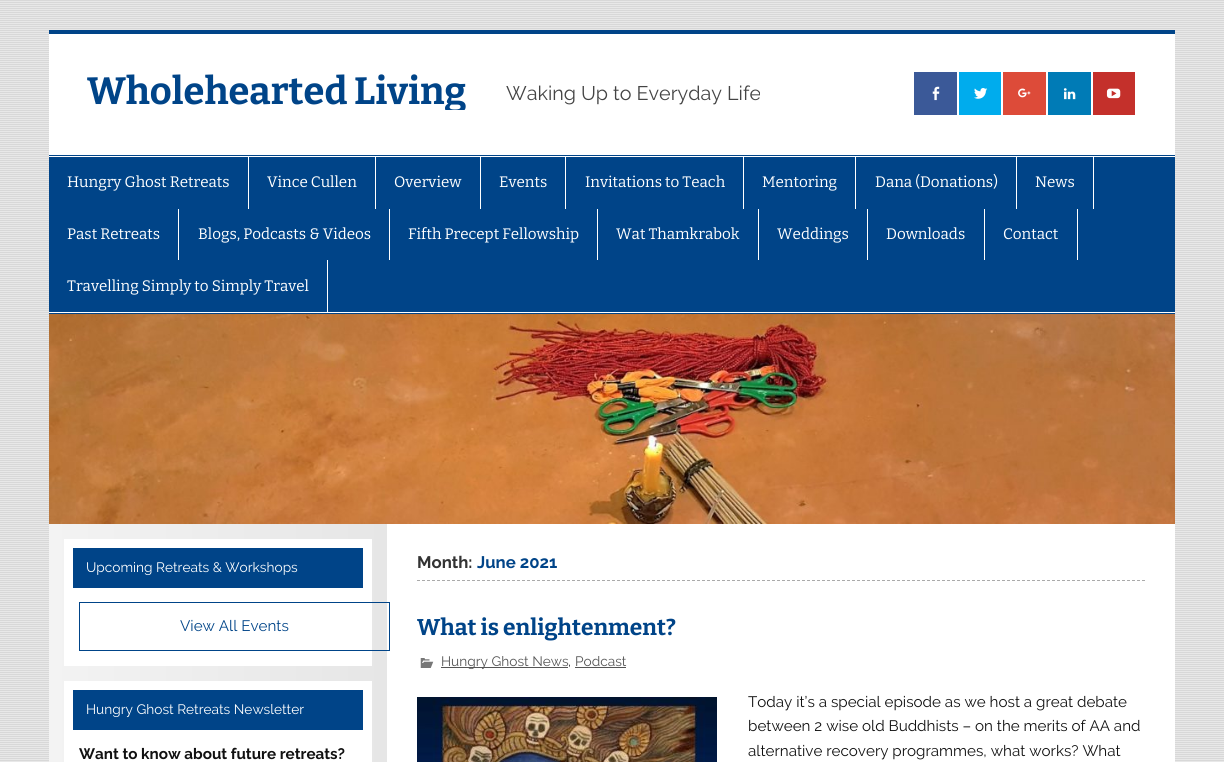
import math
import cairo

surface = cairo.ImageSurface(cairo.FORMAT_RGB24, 1224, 762)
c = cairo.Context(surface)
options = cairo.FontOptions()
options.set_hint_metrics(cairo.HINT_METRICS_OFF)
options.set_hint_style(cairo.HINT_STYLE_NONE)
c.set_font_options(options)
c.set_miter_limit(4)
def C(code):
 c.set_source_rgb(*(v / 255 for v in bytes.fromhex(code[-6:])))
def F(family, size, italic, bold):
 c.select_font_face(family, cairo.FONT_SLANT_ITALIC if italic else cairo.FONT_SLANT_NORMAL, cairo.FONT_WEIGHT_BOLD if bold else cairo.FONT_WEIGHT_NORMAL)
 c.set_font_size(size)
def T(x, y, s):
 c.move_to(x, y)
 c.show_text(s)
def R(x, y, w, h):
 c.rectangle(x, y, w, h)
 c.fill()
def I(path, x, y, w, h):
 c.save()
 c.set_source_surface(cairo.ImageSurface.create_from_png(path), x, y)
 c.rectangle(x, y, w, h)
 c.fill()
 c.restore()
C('ffffff')
c.paint()
I('1.png',0,0,1224,762)
C('ffffff')
R(49,34,1126,728)
C('004488')
R(49,30,1126,4)
F('Bitter',38,0,1)
T(87,104,'Wholehearted')
c.save()
c.rectangle(87,72,674,38)
c.clip()
T(354,104,'Living')
c.restore()
F('Raleway',19.75,0,0)
C('444444')
T(506,100,'Waking Up to Everyday Life')
C('3b5998')
R(914,72,43,43)
I('2.png',932,86,8,15)
C('00aced')
R(959,72,42,43)
I('3.png',974,88,14,11)
C('dd4b39')
R(1003,72,43,43)
I('4.png',1018,88,13,10)
C('007bb6')
R(1048,72,43,43)
I('5.png',1063,88,13,12)
C('c4302b')
R(1093,72,42,43)
I('6.png',1106,88,15,11)
C('004488')
R(49,155,1126,1)
R(49,313,1126,1)
R(49,157,1126,155)
C('ffffff')
R(248,157,1,52)
F('Bitter',15.2,0,0)
T(67,187,'Hungry Ghost Retreats')
R(375,157,1,52)
T(267,187,'Vince Cullen')
R(480,157,1,52)
T(394,187,'Overview')
R(565,157,1,52)
T(499,187,'Events')
R(743,157,1,52)
T(585,187,'Invitations to Teach')
R(855,157,1,52)
T(762,187,'Mentoring')
R(1016,157,1,52)
T(875,187,'Dana (Donations)')
R(1093,157,1,52)
T(1035,187,'News')
R(178,209,1,51)
T(67,239,'Past Retreats')
R(389,209,1,51)
T(198,239,'Blogs, Podcasts & Videos')
R(597,209,1,51)
T(408,239,'Fifth Precept Fellowship')
R(758,209,1,51)
T(616,239,'Wat Thamkrabok')
R(867,209,1,51)
T(777,239,'Weddings')
R(984,209,1,51)
T(886,239,'Downloads')
R(1077,209,1,51)
T(1003,239,'Contact')
R(327,260,1,52)
T(67,291,'Travelling Simply to Simply Travel')
I('7.png',49,314,1126,210)
gradient = cairo.LinearGradient(49,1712,387,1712)
gradient.add_color_stop_rgba(0,0.953,0.953,0.953,1)
gradient.add_color_stop_rgba(1,0.902,0.902,0.902,1)
c.set_source(gradient)
R(49,524,338,238)
C('ffffff')
R(64,539,308,127)
C('004488')
R(73,548,290,40)
F('Raleway',13.7,0,0)
C('ffffff')
T(86,572,'Upcoming Retreats & Workshops')
c.rectangle(79.5,602.5,310,48)
C('004488')
c.set_line_width(1)
c.stroke()
F('Raleway',15.2,0,0)
T(180,631,'View All Events')
C('ffffff')
R(64,681,308,81)
C('004488')
R(73,690,290,40)
F('Raleway',13.7,0,0)
C('ffffff')
T(86,714,'Hungry Ghost Retreats Newsletter')
F('Raleway',15.2,0,1)
C('111111')
T(79,759,'Want to know about future retreats?')
c.new_path()
c.move_to(417,580.5)
c.line_to(1145,580.5)
C('aaaaaa')
c.set_dash([3,2])
c.stroke()
F('Raleway',16.75,0,1)
C('333333')
T(417,568,'Month:')
C('004488')
T(477,568,'June 2021')
F('Bitter',22.75,0,1)
T(417,635,'What is enlightenment?')
I('8.png',420,658,14,10)
C('555555')
R(441,667,127,1)
F('Raleway',13.7,0,0)
T(441,666,'Hungry Ghost News')
C('333333')
T(568,666,',')
C('555555')
T(575,666,'Podcast')
R(575,667,51,1)
I('9.png',417,697,300,65)
F('Raleway',15.2,0,0)
C('111111')
T(748,707,'Today it’s a special episode as we host a great debate')
T(748,731,'between 2 wise old Buddhists – on the merits of AA and')
T(748,756,'alternative recovery programmes, what works? What')
surface.write_to_png('o.png')
